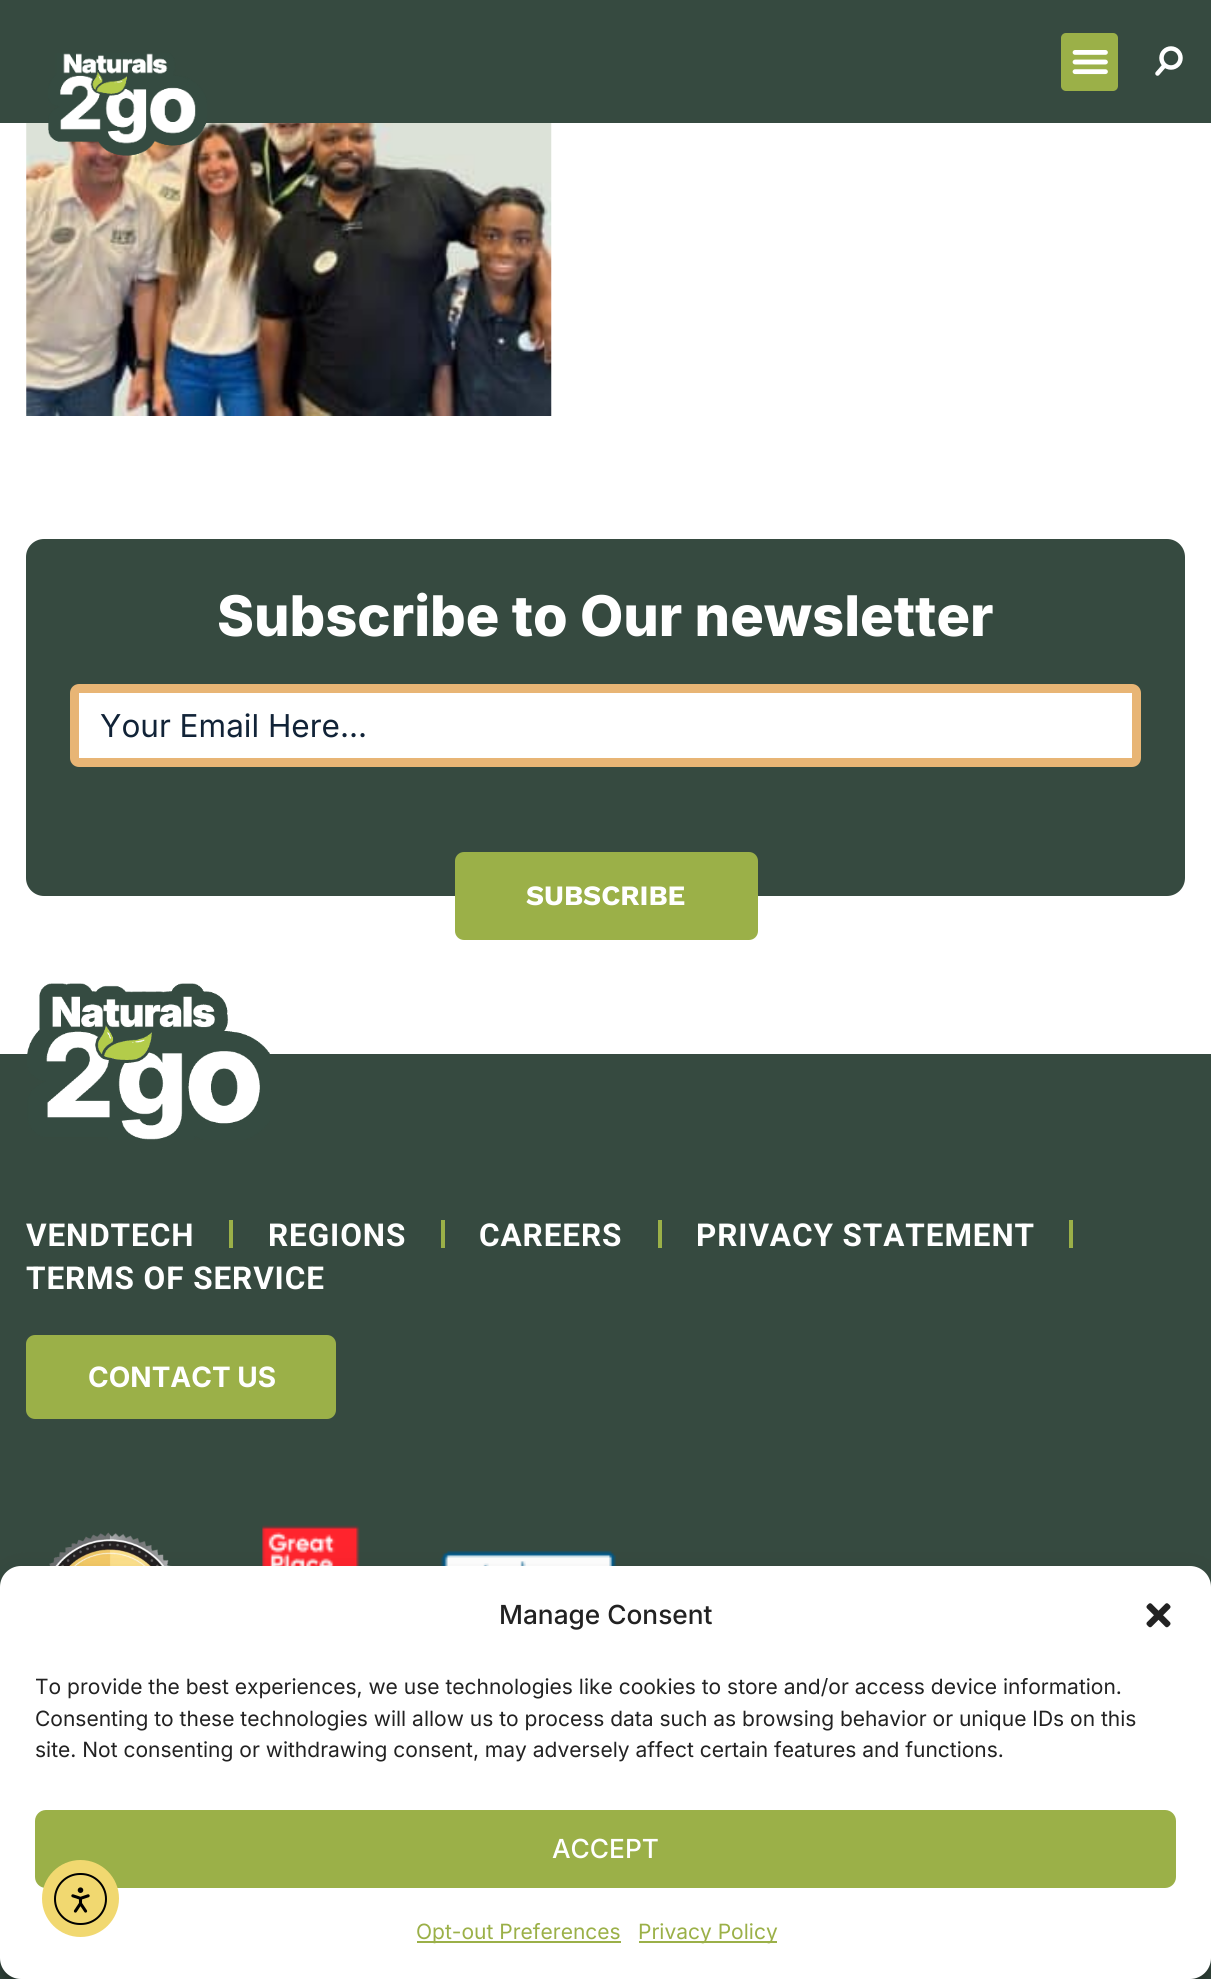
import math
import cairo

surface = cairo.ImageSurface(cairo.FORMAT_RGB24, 1211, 1979)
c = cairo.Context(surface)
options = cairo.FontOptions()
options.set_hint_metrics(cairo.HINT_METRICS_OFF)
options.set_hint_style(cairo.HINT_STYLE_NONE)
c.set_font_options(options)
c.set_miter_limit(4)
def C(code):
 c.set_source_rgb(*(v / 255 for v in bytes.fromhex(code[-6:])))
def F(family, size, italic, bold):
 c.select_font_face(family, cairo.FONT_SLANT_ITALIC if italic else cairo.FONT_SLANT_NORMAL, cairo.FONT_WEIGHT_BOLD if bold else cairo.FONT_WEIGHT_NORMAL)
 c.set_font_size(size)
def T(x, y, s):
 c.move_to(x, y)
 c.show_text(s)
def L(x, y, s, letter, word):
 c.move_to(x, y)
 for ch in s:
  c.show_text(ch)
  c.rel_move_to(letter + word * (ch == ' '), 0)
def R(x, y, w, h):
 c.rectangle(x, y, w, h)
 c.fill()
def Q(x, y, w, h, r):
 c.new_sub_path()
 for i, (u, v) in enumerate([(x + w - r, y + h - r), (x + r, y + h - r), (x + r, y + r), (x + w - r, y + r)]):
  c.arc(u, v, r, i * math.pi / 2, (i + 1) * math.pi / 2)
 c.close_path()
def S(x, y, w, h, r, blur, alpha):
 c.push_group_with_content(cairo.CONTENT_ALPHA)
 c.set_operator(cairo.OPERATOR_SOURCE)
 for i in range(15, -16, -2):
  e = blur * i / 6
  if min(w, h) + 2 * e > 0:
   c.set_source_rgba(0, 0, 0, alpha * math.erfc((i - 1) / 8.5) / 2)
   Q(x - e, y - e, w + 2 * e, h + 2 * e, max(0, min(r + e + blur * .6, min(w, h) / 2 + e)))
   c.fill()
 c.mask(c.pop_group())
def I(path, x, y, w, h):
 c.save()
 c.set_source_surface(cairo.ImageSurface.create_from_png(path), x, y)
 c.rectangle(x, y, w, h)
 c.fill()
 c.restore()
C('ffffff')
c.paint()
C('364a40')
R(0,0,1211,123)
I('3.png',26,123,526,293)
I('1.png',48,53,159,103)
C('9bb048')
Q(1061,33,57,58,5)
c.fill()
I('2.png',1072,50,36,25)
c.arc(1171,58,9.5,0,2 * math.pi)
C('ffffff')
c.set_line_width(4.5)
c.stroke()
c.new_path()
c.move_to(1164,66)
c.line_to(1157.5,73.5)
c.set_line_cap(cairo.LINE_CAP_ROUND)
c.stroke()
C('364a40')
Q(26,539,1159,357,18)
c.fill()
F('Inter ExtraBold',56,0,0)
C('ffffff')
T(217,636,'Subscribe to Our newsletter')
Q(74.5,688.5,1062,74,4.5)
c.fill_preserve()
C('e8b575')
c.set_line_width(9)
c.set_line_cap(cairo.LINE_CAP_BUTT)
c.stroke()
F('Inter',31.5,0,0)
C('112337')
T(100,737,'Your Email Here...')
C('9bb048')
Q(455,852,303,88,9)
c.fill()
F('Work Sans',28,0,1)
C('ffffff')
T(526,905,'SUBSCRIBE')
C('364a40')
R(0,1054,1211,925)
I('4.png',27,983,243,157)
F('Roboto',31.5,0,1)
C('ffffff')
L(26,1246,'VENDTECH',.9,0)
C('9bb048')
R(229,1220,4,28)
C('ffffff')
L(268,1246,'REGIONS',.9,0)
C('9bb048')
R(441,1220,4,28)
C('ffffff')
L(479,1246,'CAREERS',.9,0)
C('9bb048')
R(658,1220,4,28)
C('ffffff')
L(696,1246,'PRIVACY STATEMENT',.9,0)
C('9bb048')
R(1069,1220,4,28)
C('ffffff')
L(26,1289,'TERMS OF SERVICE',.9,0)
C('9bb048')
Q(26,1335,310,84,9)
c.fill()
F('Inter',28,0,1)
C('ffffff')
T(88,1387,'CONTACT US')
I('5.png',49,1532,123,34)
I('6.png',262,1525,98,41)
I('7.png',440,1550,176,16)
C('000000')
S(0,1577,1211,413,21,5,.23)
S(0,1584,1211,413,21,17.5,.19)
C('ffffff')
Q(0,1566,1211,413,21)
c.fill()
F('Inter Medium',26.25,0,0)
C('222222')
T(499,1624,'Manage Consent')
I('8.png',1146,1603,25,25)
F('Inter',21,0,0)
T(35,1694,'To provide the best experiences, we use technologies like cookies to store and/or access device information.')
T(35,1726,'Consenting to these technologies will allow us to process data such as browsing behavior or unique IDs on this')
T(35,1757,'site. Not consenting or withdrawing consent, may adversely affect certain features and functions.')
C('9bb048')
Q(36,1811,1139,76,10)
c.fill_preserve()
c.set_line_width(2)
c.stroke()
F('Inter Medium',26.25,0,0)
C('ffffff')
T(552,1858,'ACCEPT')
C('9bb048')
R(417,1941,204,2)
F('Inter',21,0,0)
T(416,1939,'Opt-out Preferences')
R(639,1941,138,2)
T(638,1939,'Privacy Policy')
C('f1d870')
c.new_path()
c.arc(80.5,1898.5,38.5,0,2 * math.pi)
c.fill()
Q(55,1874,51,50,25)
C('000000')
c.stroke()
I('9.png',71,1887,19,26)
surface.write_to_png('o.png')
